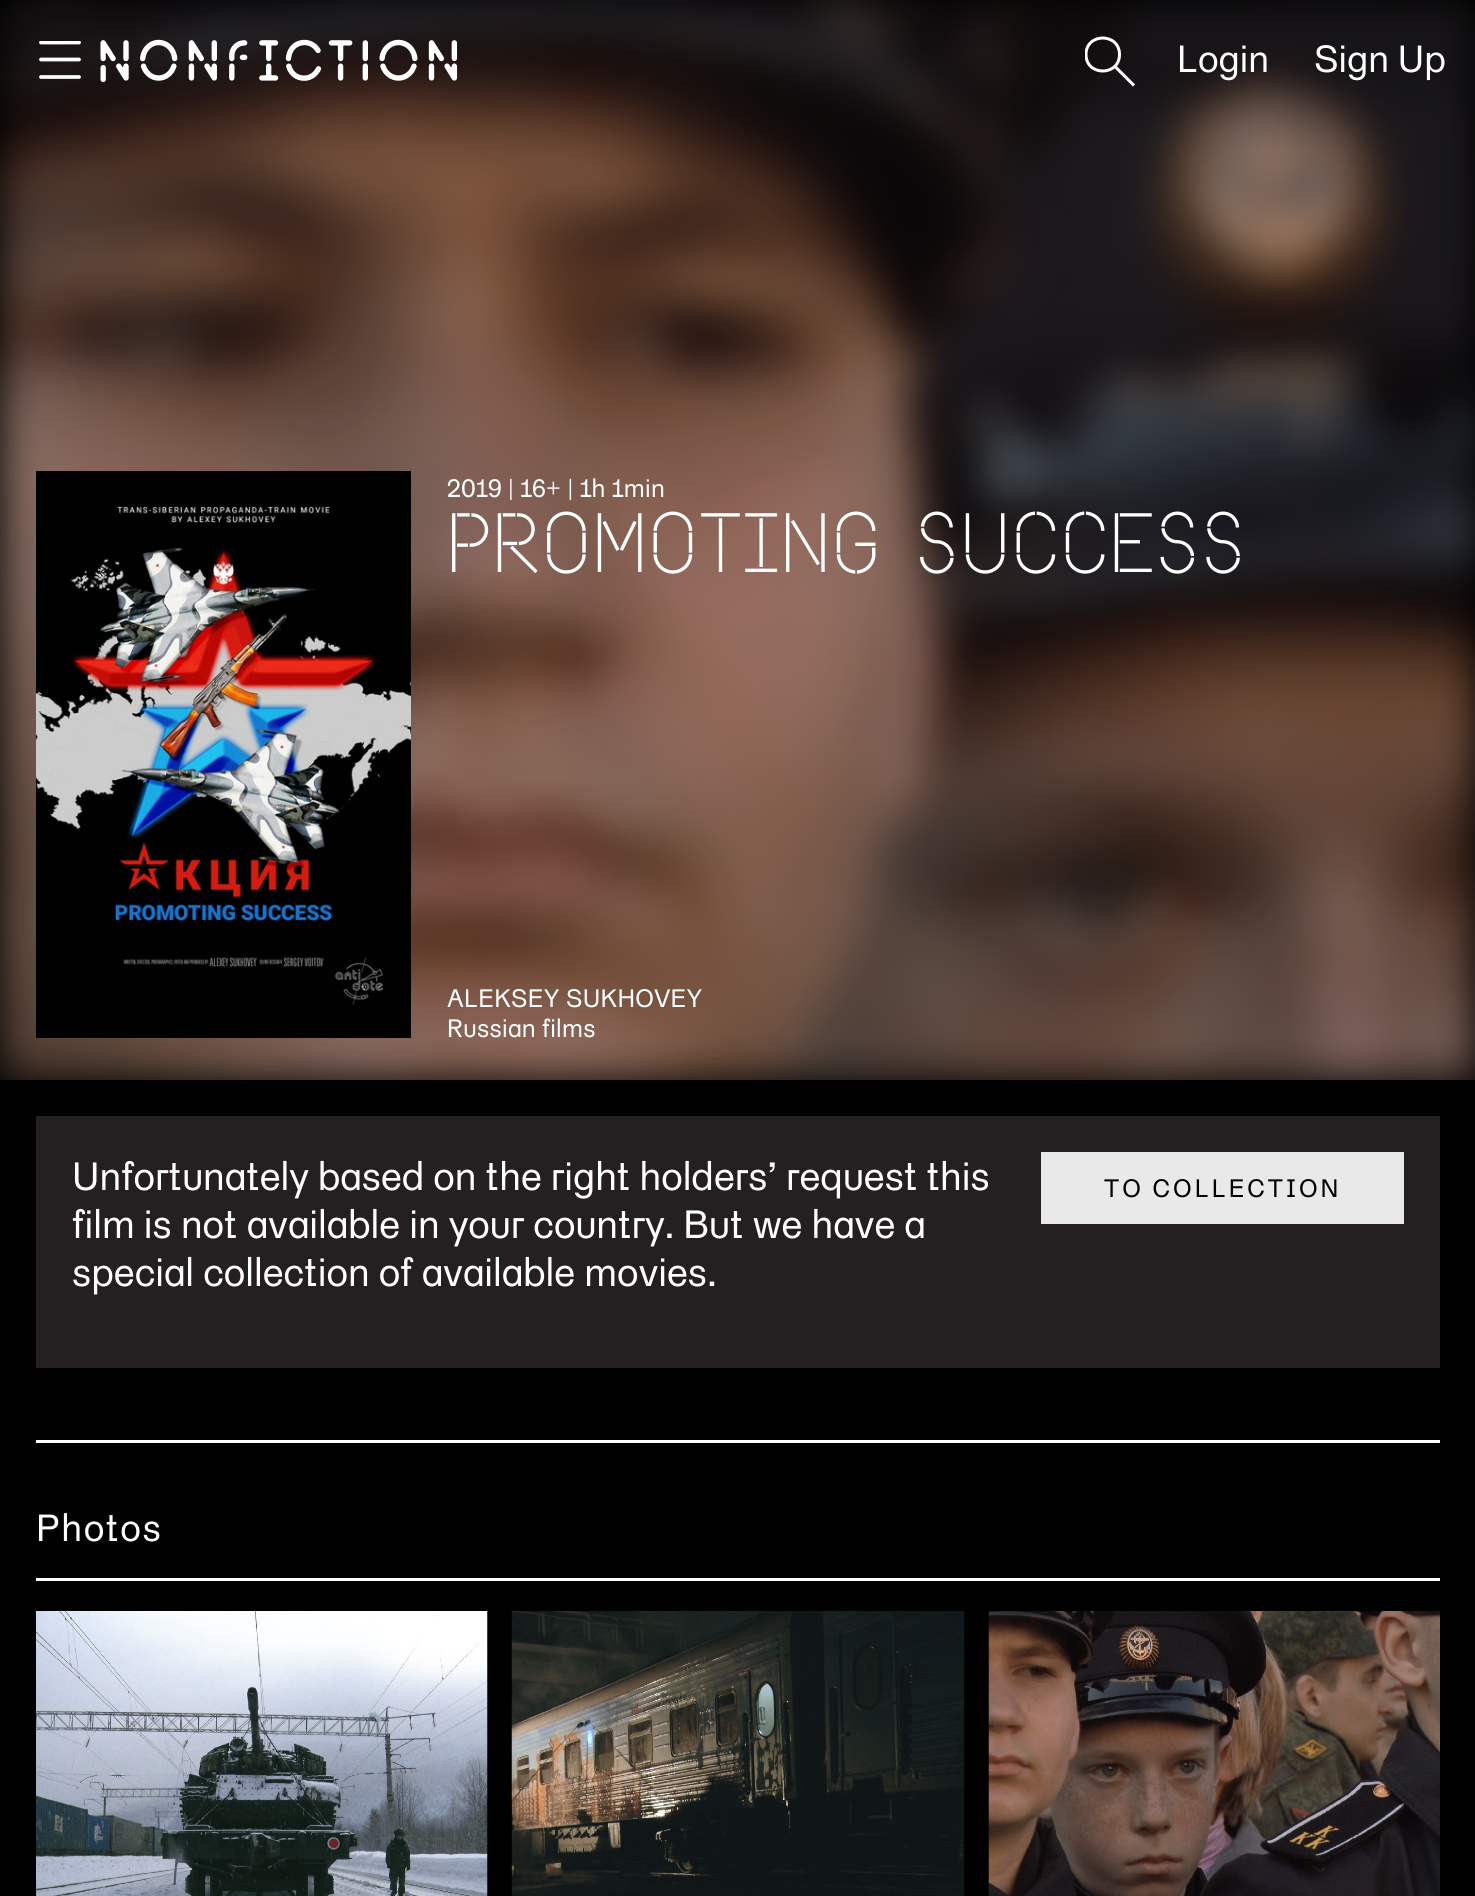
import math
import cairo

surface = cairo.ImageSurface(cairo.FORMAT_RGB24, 1475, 1896)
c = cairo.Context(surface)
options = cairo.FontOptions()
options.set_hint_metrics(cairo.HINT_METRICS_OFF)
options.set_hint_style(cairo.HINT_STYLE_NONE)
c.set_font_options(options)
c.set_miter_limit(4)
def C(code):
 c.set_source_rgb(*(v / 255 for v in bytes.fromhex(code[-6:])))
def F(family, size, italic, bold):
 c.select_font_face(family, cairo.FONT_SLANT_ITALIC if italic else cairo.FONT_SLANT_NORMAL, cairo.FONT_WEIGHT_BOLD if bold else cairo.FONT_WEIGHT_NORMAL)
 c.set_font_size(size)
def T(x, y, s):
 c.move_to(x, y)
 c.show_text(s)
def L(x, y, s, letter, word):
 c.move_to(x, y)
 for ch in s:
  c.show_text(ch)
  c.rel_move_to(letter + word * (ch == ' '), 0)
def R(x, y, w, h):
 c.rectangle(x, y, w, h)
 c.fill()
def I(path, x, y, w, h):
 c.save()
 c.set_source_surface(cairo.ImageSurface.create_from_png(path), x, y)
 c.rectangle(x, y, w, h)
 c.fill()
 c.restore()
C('000000')
c.paint()
I('2.png',0,0,1475,1080)
c.new_path()
c.move_to(79,77)
c.line_to(41,77)
c.move_to(79,59.5)
c.line_to(41,59.5)
C('fefefe')
c.set_line_width(3.8)
c.set_line_cap(cairo.LINE_CAP_ROUND)
c.set_line_join(cairo.LINE_JOIN_ROUND)
c.stroke()
c.save()
c.rectangle(39,41,42,39)
c.clip()
c.new_path()
c.move_to(79,42.5)
c.line_to(41,42.5)
c.stroke()
c.restore()
I('1.png',100,39,358,44)
c.save()
c.rectangle(1085,36,51,51)
c.clip()
c.new_path()
c.move_to(1134,85.5)
c.line_to(1115,66.5)
c.move_to(1086,54.5)
c.curve_to(1086,76.5,1119.5,76.5,1119.5,54.5)
c.curve_to(1119.5,32.5,1086,32.5,1086,54.5)
c.close_path()
C('ffffff')
c.set_line_width(3)
c.set_line_cap(cairo.LINE_CAP_BUTT)
c.stroke()
c.restore()
F('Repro',36,0,0)
C('ffffff')
T(1177,72,'Login')
T(1314,72,'Sign Up')
I('3.png',36,471,375,567)
F('Repro',24,0,0)
L(447,497,'2019 | 16+ | 1h 1min',.3,0)
F('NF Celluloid',84,0,0)
L(447,572,'PROMOTING SUCCESS',2.1,0)
F('Repro',24,0,0)
L(447,1007,'ALEKSEY SUKHOVEY',.25,0)
L(447,1037,'Russian films',.25,0)
C('241f21')
R(36,1116,1404,252)
F('Repro',37.5,0,0)
C('ffffff')
T(72,1190,'Unfortunately based on the right holders’ request this')
T(72,1238,'film is not available in your country. But we have a')
T(72,1286,'special collection of available movies.')
C('e9e9e9')
R(1041,1152,363,72)
F('Repro',24,0,0)
C('040303')
L(1104,1197,'TO COLLECTION',3,0)
C('ffffff')
R(36,1440,1404,3)
R(36,1578,1404,3)
F('Repro',36,0,0)
L(36,1541,'Photos',1.5,0)
I('4.png',36,1611,452,285)
I('5.png',511,1611,454,285)
I('6.png',988,1611,452,285)
surface.write_to_png('o.png')
